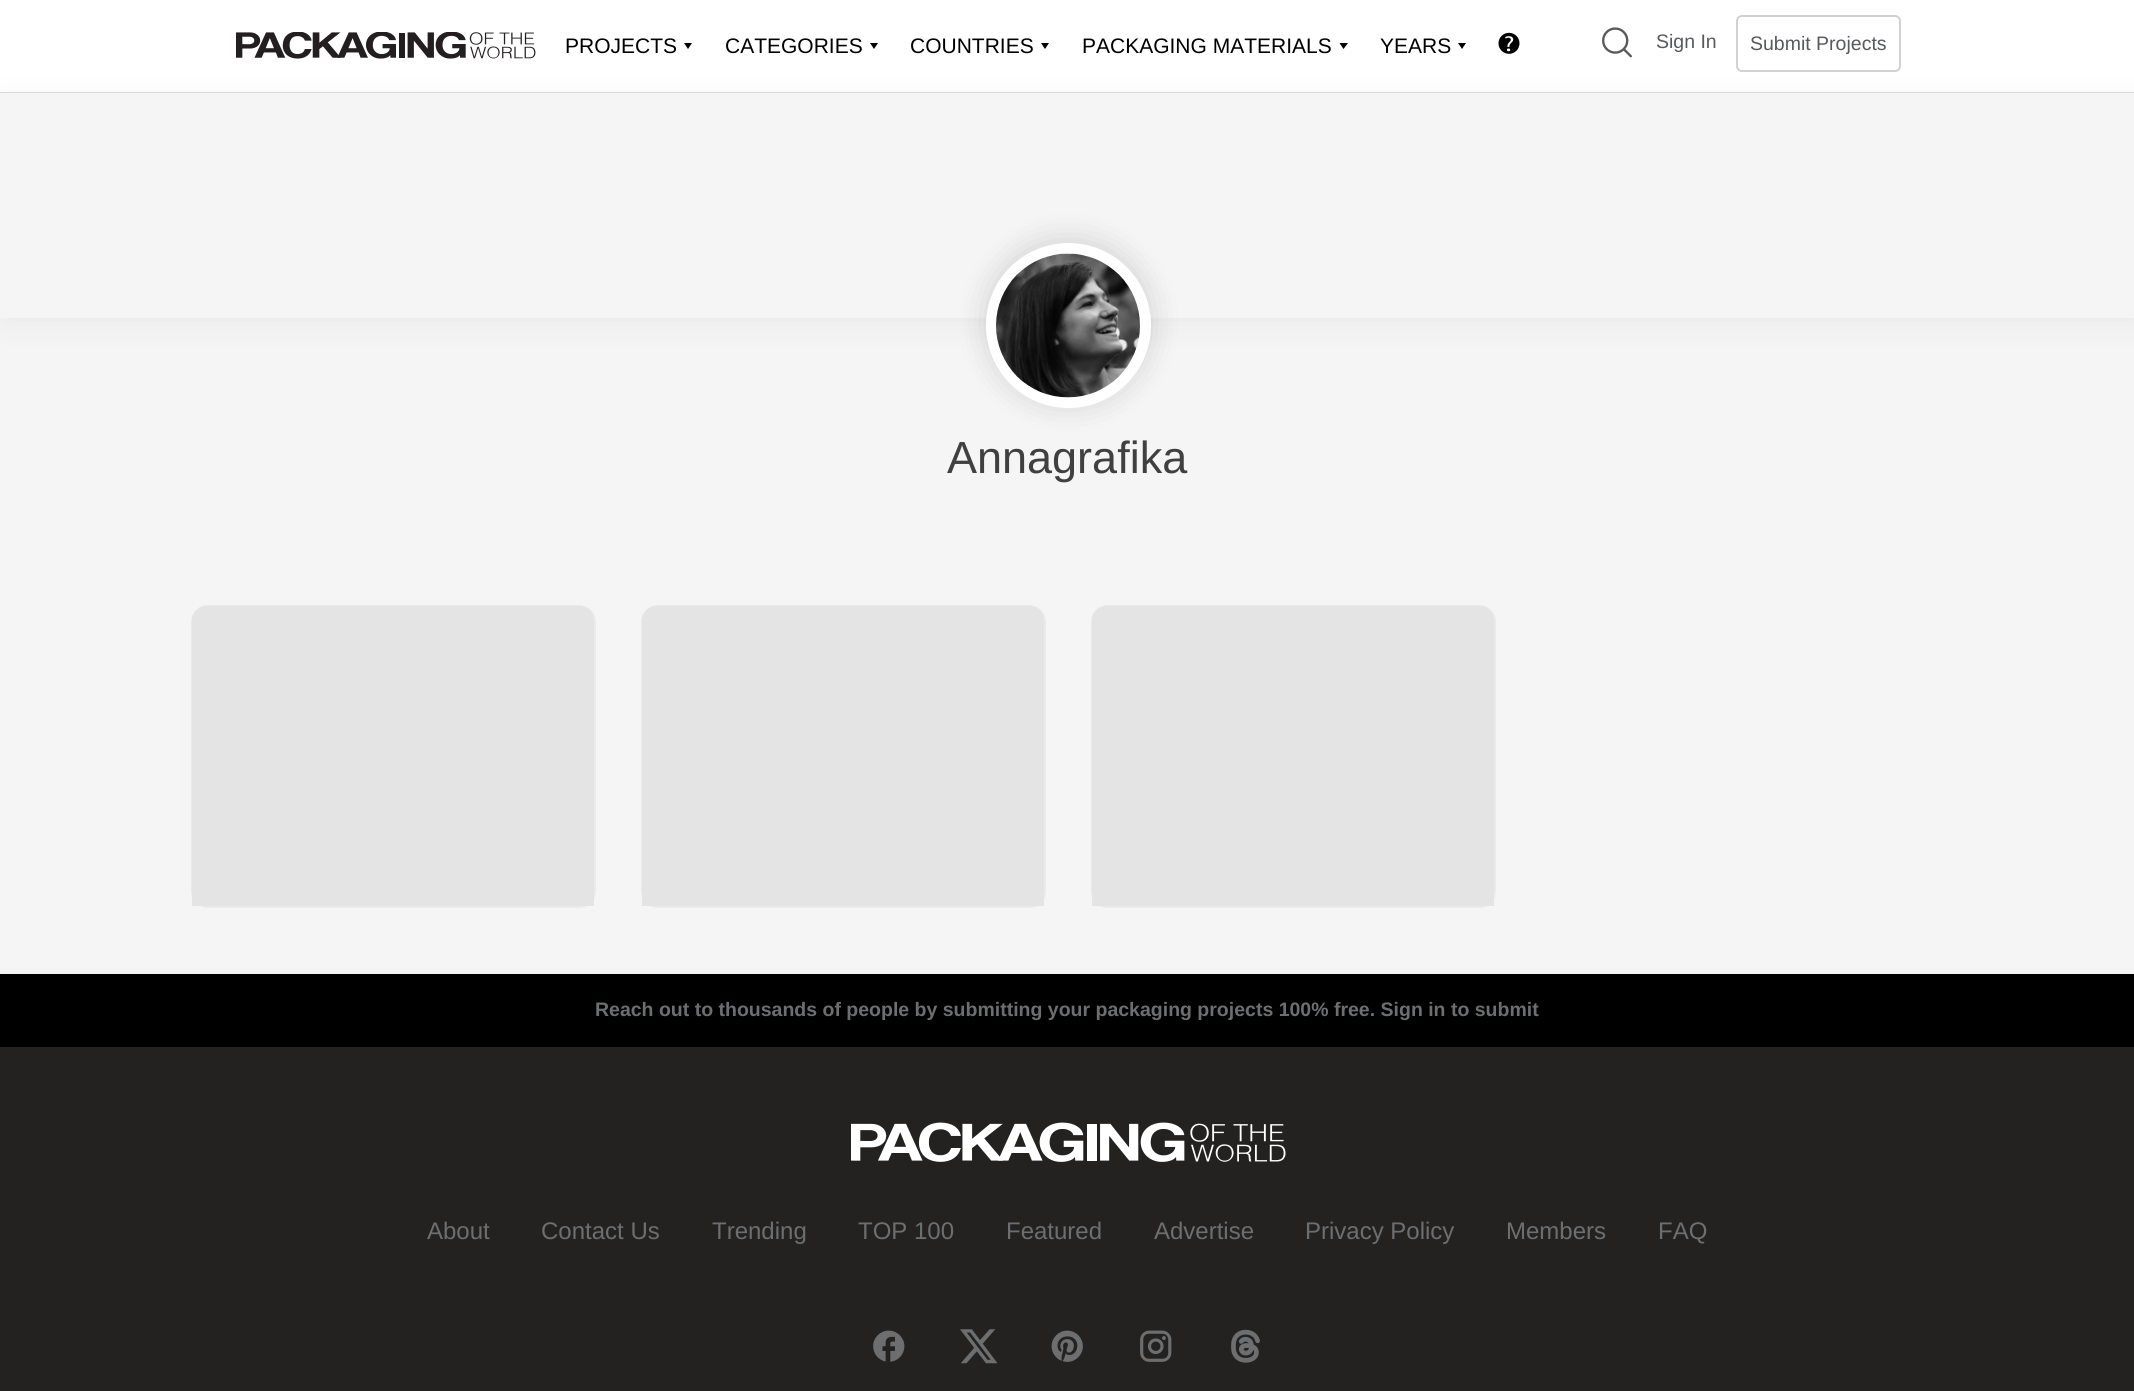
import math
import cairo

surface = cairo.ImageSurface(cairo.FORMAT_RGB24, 2134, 1391)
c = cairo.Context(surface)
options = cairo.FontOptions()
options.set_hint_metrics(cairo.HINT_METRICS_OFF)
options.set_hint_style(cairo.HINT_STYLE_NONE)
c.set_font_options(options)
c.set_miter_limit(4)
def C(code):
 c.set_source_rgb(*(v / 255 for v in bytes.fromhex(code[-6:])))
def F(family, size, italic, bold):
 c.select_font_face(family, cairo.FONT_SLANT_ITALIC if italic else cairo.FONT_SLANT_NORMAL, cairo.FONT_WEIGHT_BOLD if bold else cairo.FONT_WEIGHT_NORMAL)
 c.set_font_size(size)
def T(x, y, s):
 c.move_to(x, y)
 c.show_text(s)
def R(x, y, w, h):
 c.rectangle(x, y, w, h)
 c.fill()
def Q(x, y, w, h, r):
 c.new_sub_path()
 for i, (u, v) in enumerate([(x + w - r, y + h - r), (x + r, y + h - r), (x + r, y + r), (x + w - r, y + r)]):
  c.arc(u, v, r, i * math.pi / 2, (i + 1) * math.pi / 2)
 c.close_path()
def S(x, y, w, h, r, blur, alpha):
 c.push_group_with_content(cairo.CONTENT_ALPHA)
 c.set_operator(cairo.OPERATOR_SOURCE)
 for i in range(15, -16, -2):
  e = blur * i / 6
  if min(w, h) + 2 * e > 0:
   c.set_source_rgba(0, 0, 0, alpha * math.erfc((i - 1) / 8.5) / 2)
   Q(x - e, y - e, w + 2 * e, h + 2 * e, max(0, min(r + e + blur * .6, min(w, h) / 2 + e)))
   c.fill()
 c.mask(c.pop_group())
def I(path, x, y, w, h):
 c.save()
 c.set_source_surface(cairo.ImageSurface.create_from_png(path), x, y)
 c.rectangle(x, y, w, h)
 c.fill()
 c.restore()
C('f5f5f5')
c.paint()
C('ffffff')
R(0,0,2134,92)
C('dbdbdb')
R(0,92,2134,1)
I('1.png',236,32,300,27)
F('Liberation Sans',21,0,0)
C('000000')
T(565,53,'PROJECTS')
c.new_path()
c.move_to(692,43)
c.line_to(688,49)
c.line_to(684,43)
c.close_path()
c.fill()
T(725,53,'CATEGORIES')
c.new_path()
c.move_to(878,43)
c.line_to(874,49)
c.line_to(870,43)
c.close_path()
c.fill()
T(910,53,'COUNTRIES')
c.new_path()
c.move_to(1049,43)
c.line_to(1045,49)
c.line_to(1041,43)
c.close_path()
c.fill()
T(1082,53,'PACKAGING MATERIALS')
c.new_path()
c.move_to(1348,43)
c.line_to(1343.5,49)
c.line_to(1339.5,43)
c.close_path()
c.fill()
T(1380,53,'YEARS')
c.new_path()
c.move_to(1466,43)
c.line_to(1462,49)
c.line_to(1458,43)
c.close_path()
c.fill()
I('2.png',1498,32,22,22)
I('3.png',1602,27,30,31)
F('Liberation Sans',19.5,0,0)
C('58595b')
T(1656,48,'Sign In')
Q(1737,16,163,55,5)
C('d1d1d1')
c.stroke()
C('58595b')
T(1750,50,'Submit Projects')
C('1e1e1e')
S(3,99,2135,225,0,15,.05)
C('f5f5f5')
R(0,93,2134,225)
C('000000')
S(986,240,165,165,82.5,15,.15)
C('ffffff')
c.arc(1068.5,325.5,78.5,0,2 * math.pi)
c.fill_preserve()
c.set_line_width(8)
c.stroke()
I('4.png',996,253,144,145)
F('Liberation Sans',45,0,0)
C('404040')
T(947,473,'Annagrafika')
Q(192,606,403,301,16)
C('eaeaea')
c.set_line_width(2)
c.stroke()
C('e4e4e4')
c.new_path()
c.move_to(207,606)
c.line_to(579,606)
c.curve_to(587.5,606,594,612.5,594,621)
c.line_to(594,906)
c.line_to(192,906)
c.line_to(192,621)
c.curve_to(192,612.5,198.5,606,207,606)
c.close_path()
c.fill()
Q(642,606,403,301,16)
C('eaeaea')
c.stroke()
C('e4e4e4')
c.new_path()
c.move_to(657,606)
c.line_to(1029,606)
c.curve_to(1037.5,606,1044,612.5,1044,621)
c.line_to(1044,906)
c.line_to(642,906)
c.line_to(642,621)
c.curve_to(642,612.5,648.5,606,657,606)
c.close_path()
c.fill()
Q(1092,606,403,301,16)
C('eaeaea')
c.stroke()
C('e4e4e4')
c.new_path()
c.move_to(1107,606)
c.line_to(1479,606)
c.curve_to(1487.5,606,1494,612.5,1494,621)
c.line_to(1494,906)
c.line_to(1092,906)
c.line_to(1092,621)
c.curve_to(1092,612.5,1098.5,606,1107,606)
c.close_path()
c.fill()
C('232221')
R(0,1047,2134,344)
C('000000')
R(0,974,2134,73)
F('Liberation Sans',19.5,0,1)
C('6d6e70')
T(595,1016,'Reach out to thousands of people by submitting your packaging projects 100% free. Sign in to submit')
I('5.png',851,1122,435,40)
F('Liberation Sans',24,0,0)
T(427,1239,'About')
T(541,1239,'Contact Us')
T(712,1239,'Trending')
T(858,1239,'TOP 100')
T(1006,1239,'Featured')
T(1154,1239,'Advertise')
T(1305,1239,'Privacy Policy')
T(1506,1239,'Members')
T(1658,1239,'FAQ')
I('6.png',873,1330,32,32)
I('7.png',960,1329,38,35)
I('8.png',1051,1330,32,32)
I('9.png',1140,1330,32,32)
I('10.png',1231,1329,29,34)
surface.write_to_png('o.png')
